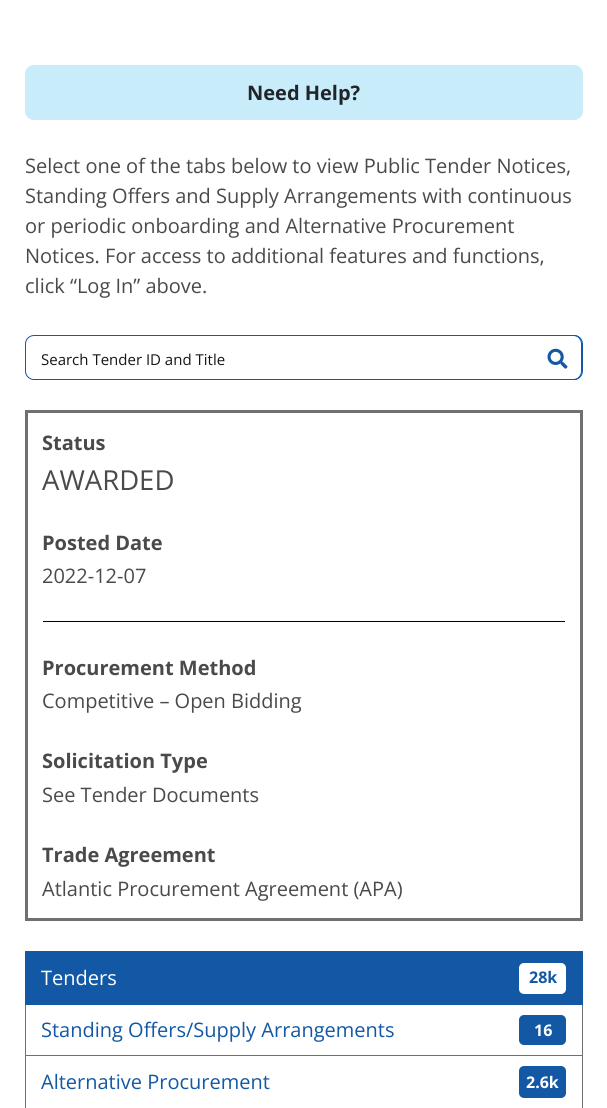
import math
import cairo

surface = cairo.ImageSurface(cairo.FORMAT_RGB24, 607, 1108)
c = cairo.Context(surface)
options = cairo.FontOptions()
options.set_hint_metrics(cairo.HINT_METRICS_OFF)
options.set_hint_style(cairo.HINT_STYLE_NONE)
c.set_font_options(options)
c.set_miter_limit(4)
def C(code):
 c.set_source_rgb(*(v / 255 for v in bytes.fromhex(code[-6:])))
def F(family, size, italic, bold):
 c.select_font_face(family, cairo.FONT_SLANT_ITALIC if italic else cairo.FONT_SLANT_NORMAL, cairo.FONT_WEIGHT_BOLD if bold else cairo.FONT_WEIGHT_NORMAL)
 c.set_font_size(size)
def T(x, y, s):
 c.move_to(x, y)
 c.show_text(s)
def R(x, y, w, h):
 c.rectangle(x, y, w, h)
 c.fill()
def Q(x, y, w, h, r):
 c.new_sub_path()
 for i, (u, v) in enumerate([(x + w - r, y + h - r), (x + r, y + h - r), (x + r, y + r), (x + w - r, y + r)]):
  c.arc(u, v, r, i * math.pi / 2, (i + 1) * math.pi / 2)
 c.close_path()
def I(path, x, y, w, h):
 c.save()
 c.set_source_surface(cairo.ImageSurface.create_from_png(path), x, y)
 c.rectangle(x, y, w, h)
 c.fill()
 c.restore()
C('ffffff')
c.paint()
C('c9ecfb')
Q(25.5,65.5,557,54,8.5)
c.fill_preserve()
c.set_line_width(1)
c.stroke()
F('Open Sans',20,0,1)
C('212529')
T(247,100,'Need Help?')
F('Open Sans',20,0,0)
C('4a4a4a')
T(25,173,'Select one of the tabs below to view Public Tender Notices,')
T(25,203,'Standing Offers and Supply Arrangements with continuous')
T(25,233,'or periodic onboarding and Alternative Procurement')
T(25,263,'Notices. For access to additional features and functions,')
T(25,293,'click “Log In” above.')
Q(25.5,335.5,557,44,8.5)
C('1358a4')
c.stroke()
F('Open Sans',15,0,0)
C('151515')
T(41,365,'Search Tender ID and Title')
C('1358a4')
c.set_fill_rule(cairo.FILL_RULE_EVEN_ODD)
c.new_path()
c.move_to(532,335)
c.line_to(574,335)
c.curve_to(579,335,582,339,582,344)
c.line_to(582,371)
c.curve_to(582,376,579,380,574,380)
c.line_to(532,380)
c.close_path()
c.move_to(532,336)
c.line_to(574,336)
c.curve_to(578,336,581,340,581,344)
c.line_to(581,371)
c.curve_to(581,375,578,379,574,379)
c.line_to(532,379)
c.close_path()
c.fill()
I('1.png',547,348,21,21)
c.rectangle(26.5,411.5,555,508)
C('707070')
c.set_line_width(3)
c.stroke()
F('Open Sans',20,0,1)
C('4a4a4a')
T(42,450,'Status')
F('Open Sans',27.5,0,0)
T(42,490,'AWARDED')
F('Open Sans',20,0,1)
T(42,550,'Posted Date')
F('Open Sans',20,0,0)
T(42,583,'2022-12-07')
C('000000')
R(43,621,522,1)
F('Open Sans',20,0,1)
C('4a4a4a')
T(42,675,'Procurement Method')
F('Open Sans',20,0,0)
T(42,708,'Competitive – Open Bidding')
F('Open Sans',20,0,1)
T(42,768,'Solicitation Type')
F('Open Sans',20,0,0)
T(42,802,'See Tender Documents')
F('Open Sans',20,0,1)
T(42,862,'Trade Agreement')
F('Open Sans',20,0,0)
T(42,896,'Atlantic Procurement Agreement (APA)')
c.rectangle(25.5,1004.5,557,51)
C('707070')
c.set_line_width(1)
c.stroke()
C('1358a4')
R(25,951,558,54)
C('ffffff')
T(41,985,'Tenders')
Q(519,963,47,31,5)
c.fill()
F('Open Sans',16,0,1)
C('1358a4')
T(529,983,'28k')
F('Open Sans',20,0,0)
T(41,1037,'Standing Offers/Supply Arrangements')
Q(519,1015,47,30,5)
c.fill()
F('Open Sans',16,0,1)
C('ffffff')
T(534,1036,'16')
c.rectangle(25.5,1055.5,557,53)
C('707070')
c.stroke()
F('Open Sans',20,0,0)
C('1358a4')
T(41,1089,'Alternative Procurement')
Q(519,1066,47,32,5)
c.fill()
F('Open Sans',16,0,1)
C('ffffff')
T(526,1088,'2.6k')
surface.write_to_png('o.png')
